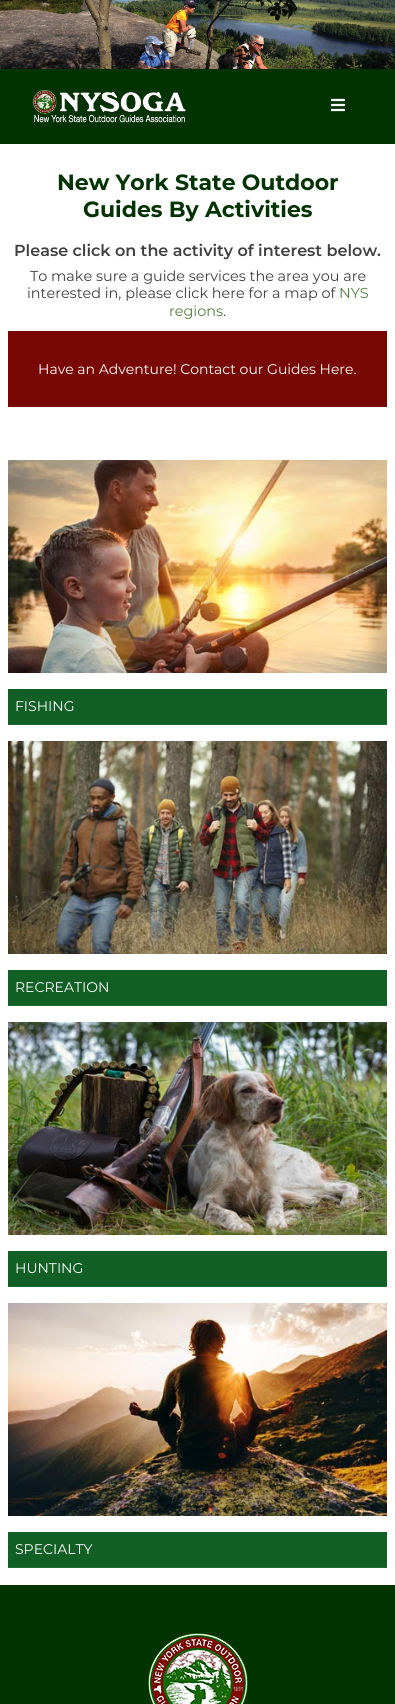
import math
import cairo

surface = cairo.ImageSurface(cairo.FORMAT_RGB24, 395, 1704)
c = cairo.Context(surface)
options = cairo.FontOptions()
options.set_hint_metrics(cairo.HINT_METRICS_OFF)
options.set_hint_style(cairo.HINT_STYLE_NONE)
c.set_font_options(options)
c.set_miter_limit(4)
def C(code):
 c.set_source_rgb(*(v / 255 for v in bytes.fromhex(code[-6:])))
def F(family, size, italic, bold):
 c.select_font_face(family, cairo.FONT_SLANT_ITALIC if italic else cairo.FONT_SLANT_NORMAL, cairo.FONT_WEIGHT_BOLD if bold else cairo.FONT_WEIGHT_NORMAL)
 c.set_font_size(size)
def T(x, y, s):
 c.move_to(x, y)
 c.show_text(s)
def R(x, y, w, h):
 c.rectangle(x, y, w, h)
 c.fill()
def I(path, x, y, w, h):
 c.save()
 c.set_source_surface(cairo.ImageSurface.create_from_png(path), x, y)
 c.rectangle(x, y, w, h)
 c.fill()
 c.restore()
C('ffffff')
c.paint()
I('1.png',0,0,395,69)
C('003300')
R(0,69,395,75)
I('2.png',33,90,153,33)
I('3.png',331,98,14,14)
F('Montserrat',22,0,1)
T(57,190,'New York State Outdoor')
T(83,217,'Guides By Activities')
F('Montserrat SemiBold',16,0,0)
C('404040')
T(14,256,'Please click on the activity of interest below.')
F('Montserrat',14.4,0,0)
T(30,281,'To make sure a guide services the area you are')
T(27,298,'interested in, please click here for a map of')
C('558041')
T(339,298,'NYS')
T(169,316,'regions')
C('404040')
T(223,316,'.')
C('780703')
R(8,331,379,76)
F('Montserrat',14,0,0)
C('ffffff')
T(38,374,'Have an Adventure! Contact our Guides Here.')
I('4.png',8,460,379,213)
C('115f25')
R(8,689,379,35)
C('226a34')
R(8,724,379,1)
C('ffffff')
T(15,711,'FISHING')
I('5.png',8,741,379,213)
C('115f25')
R(8,970,379,35)
C('226a34')
R(8,1005,379,1)
C('ffffff')
T(15,992,'RECREATION')
I('6.png',8,1022,379,213)
C('115f25')
R(8,1251,379,35)
C('226a34')
R(8,1286,379,1)
C('ffffff')
T(15,1273,'HUNTING')
I('7.png',8,1303,379,213)
C('115f25')
R(8,1532,379,35)
C('226a34')
R(8,1567,379,1)
C('ffffff')
T(15,1554,'SPECIALTY')
C('003300')
R(0,1585,395,119)
I('8.png',148,1633,100,71)
surface.write_to_png('o.png')
